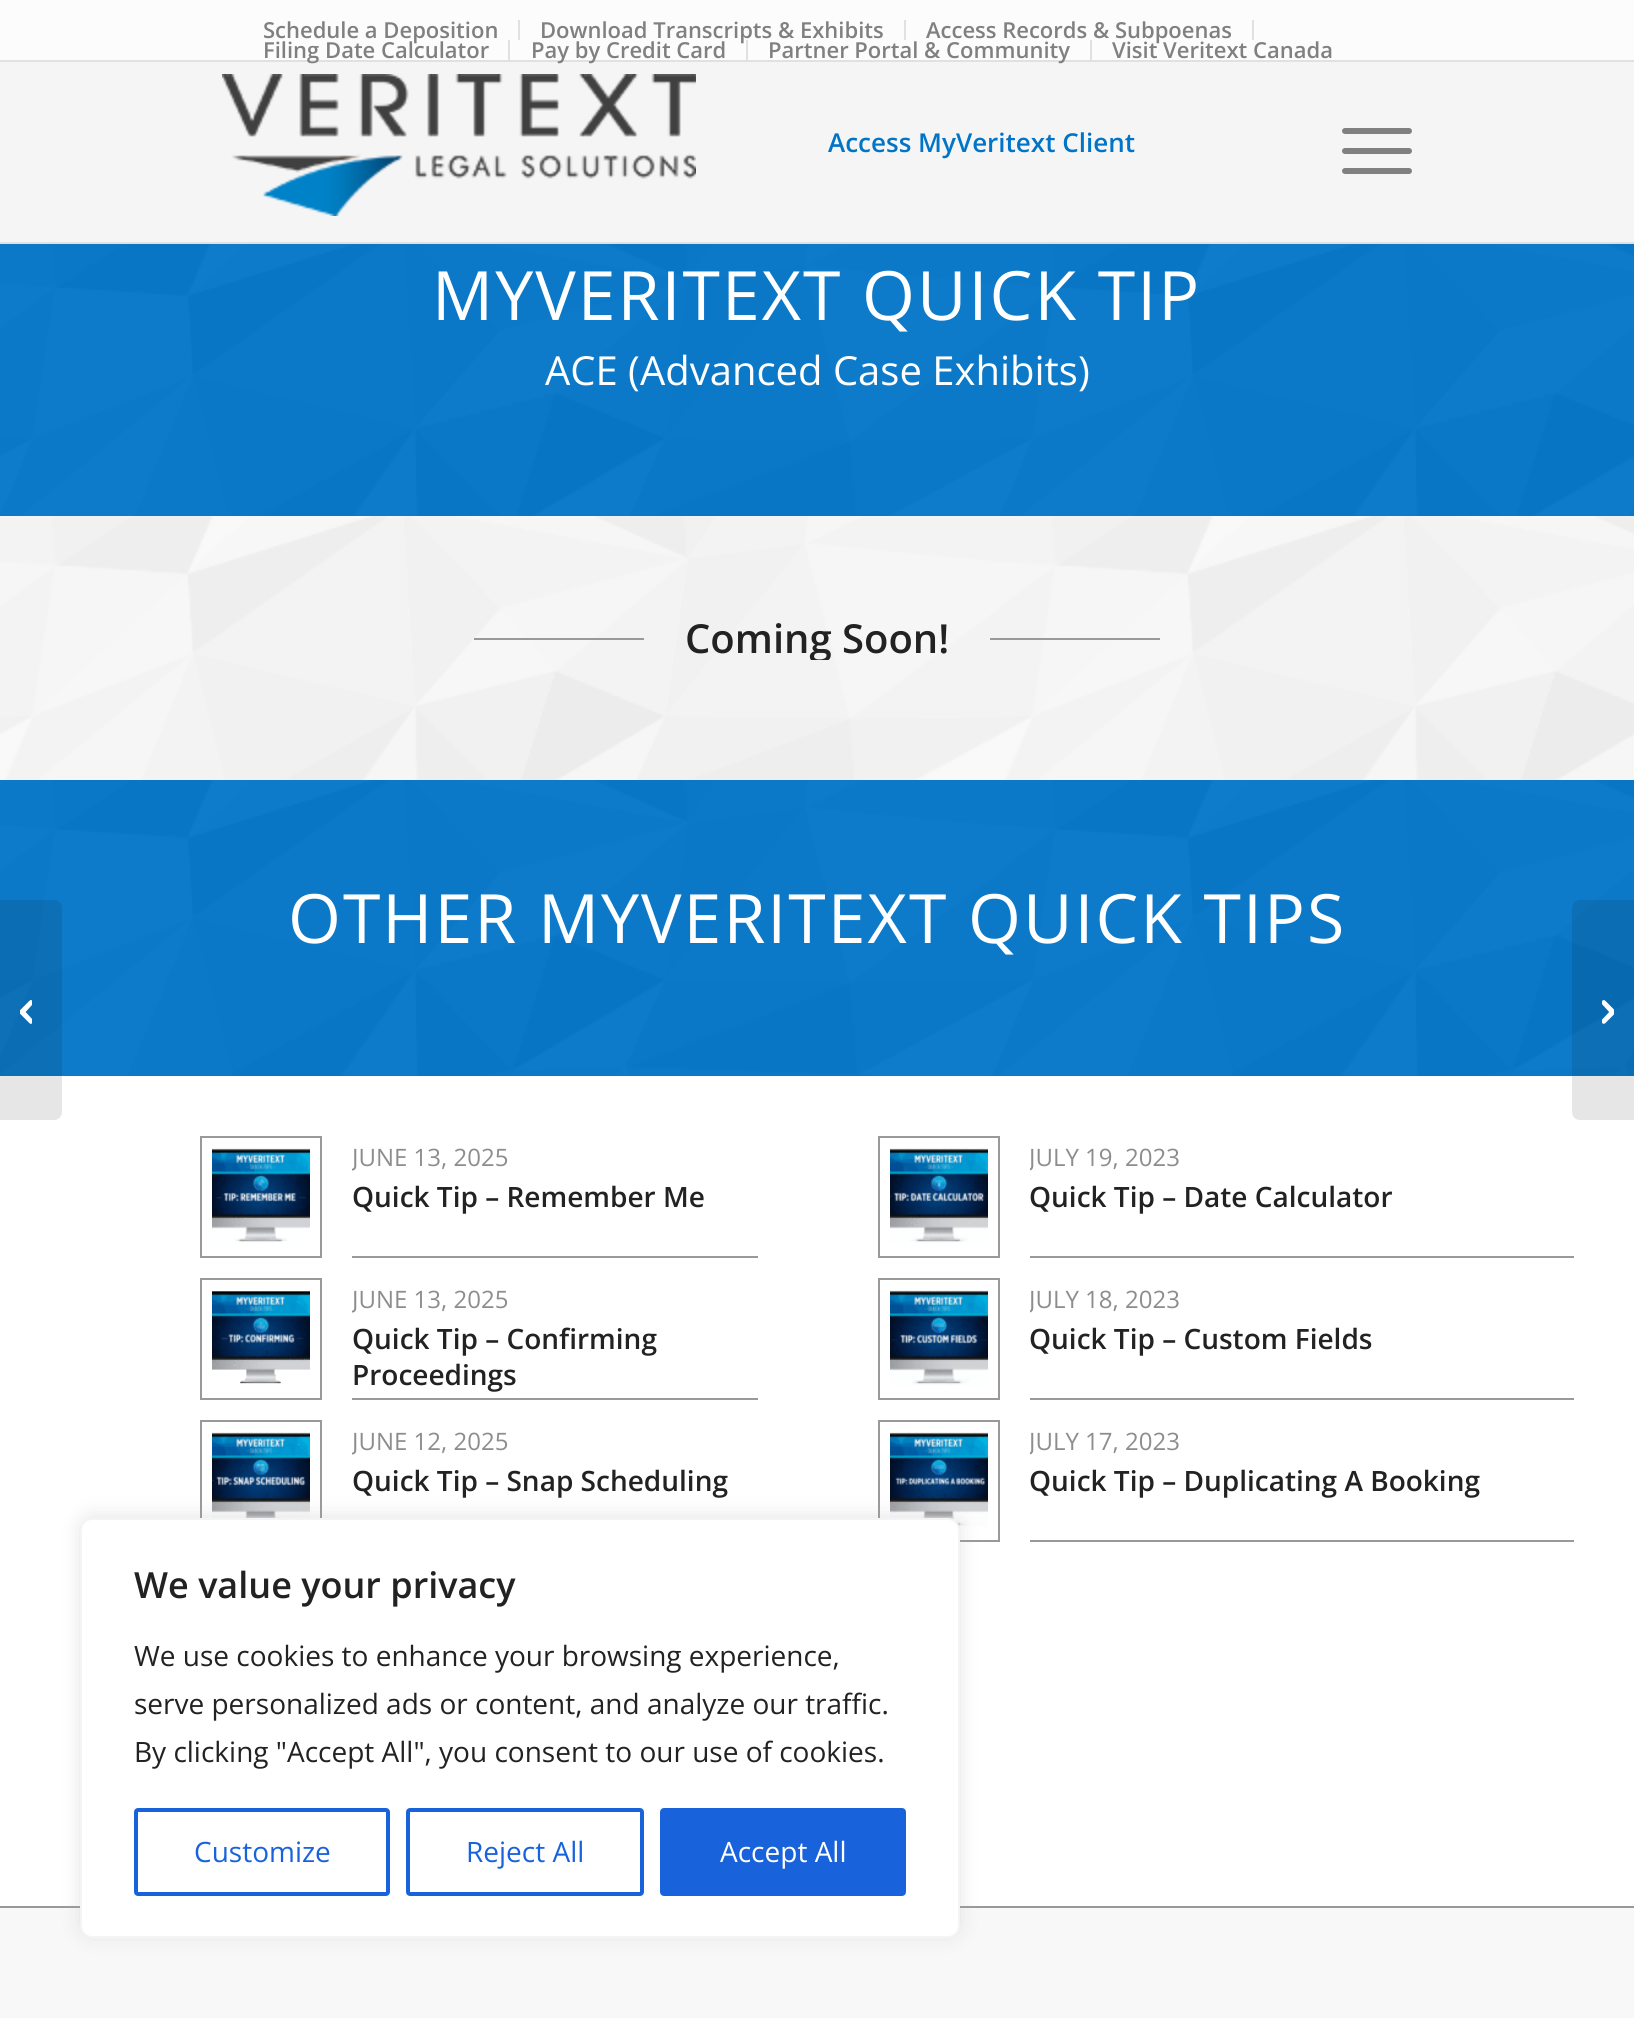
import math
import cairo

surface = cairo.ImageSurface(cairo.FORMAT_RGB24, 1634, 2018)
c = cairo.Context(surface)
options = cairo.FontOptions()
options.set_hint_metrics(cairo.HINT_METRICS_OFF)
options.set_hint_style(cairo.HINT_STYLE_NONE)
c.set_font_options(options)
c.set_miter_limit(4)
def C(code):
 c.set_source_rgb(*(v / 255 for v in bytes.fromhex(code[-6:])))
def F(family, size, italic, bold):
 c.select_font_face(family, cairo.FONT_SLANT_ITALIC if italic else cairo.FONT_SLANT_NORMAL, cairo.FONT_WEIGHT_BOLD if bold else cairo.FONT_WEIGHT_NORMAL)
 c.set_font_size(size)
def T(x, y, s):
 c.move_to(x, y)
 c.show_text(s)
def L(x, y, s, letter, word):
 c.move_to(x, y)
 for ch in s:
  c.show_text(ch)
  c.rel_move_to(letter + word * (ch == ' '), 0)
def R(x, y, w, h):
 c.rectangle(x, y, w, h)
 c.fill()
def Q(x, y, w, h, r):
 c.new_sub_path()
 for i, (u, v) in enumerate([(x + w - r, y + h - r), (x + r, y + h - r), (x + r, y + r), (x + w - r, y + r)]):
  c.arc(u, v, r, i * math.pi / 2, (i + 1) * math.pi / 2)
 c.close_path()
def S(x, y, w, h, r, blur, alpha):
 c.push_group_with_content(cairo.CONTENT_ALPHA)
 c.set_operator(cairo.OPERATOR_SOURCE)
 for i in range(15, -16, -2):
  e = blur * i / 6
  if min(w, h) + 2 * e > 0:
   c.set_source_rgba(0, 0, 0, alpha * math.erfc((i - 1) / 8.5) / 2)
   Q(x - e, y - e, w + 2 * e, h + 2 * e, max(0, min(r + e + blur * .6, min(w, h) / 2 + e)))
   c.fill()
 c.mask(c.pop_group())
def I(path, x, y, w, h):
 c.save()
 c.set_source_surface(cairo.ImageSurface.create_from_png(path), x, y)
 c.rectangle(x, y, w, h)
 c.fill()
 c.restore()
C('0074c8')
c.paint()
C('fcfcfc')
R(0,0,1634,60)
C('e1e1e1')
R(0,60,1634,2)
R(518,20,2,20)
F('Open Sans SemiBold',22,0,0)
C('808080')
T(263,38,'Schedule a Deposition')
C('e1e1e1')
R(904,20,2,20)
C('808080')
T(540,38,'Download Transcripts & Exhibits')
C('e1e1e1')
R(1252,20,2,20)
C('808080')
T(926,38,'Access Records & Subpoenas')
C('e1e1e1')
R(508,40,2,20)
C('f5f5f5')
R(0,62,1634,180)
C('808080')
T(263,58,'Filing Date Calculator')
C('e1e1e1')
R(746,40,2,20)
C('808080')
T(531,58,'Pay by Credit Card')
C('e1e1e1')
R(1090,40,2,20)
C('808080')
T(768,58,'Partner Portal & Community')
T(1112,58,'Visit Veritext Canada')
C('e1e1e1')
R(0,242,1634,2)
I('1.png',222,74,474,142)
F('Open Sans SemiBold',26,0,0)
C('0075c8')
T(828,152,'Access MyVeritext Client')
C('808080')
Q(1342,148,70,6,3)
c.fill()
Q(1342,128,70,6,3)
c.fill()
Q(1342,168,70,6,3)
c.fill()
I('5.png',0,780,1634,296)
C('ffffff')
R(0,1076,1634,830)
c.set_source_rgba(0,0,0,0.1)
c.new_path()
c.move_to(0,900)
c.line_to(54,900)
c.curve_to(58.5,900,62,903.5,62,908)
c.line_to(62,1112)
c.curve_to(62,1116.5,58.5,1120,54,1120)
c.line_to(0,1120)
c.close_path()
c.fill()
I('2.png',20,1000,12,24)
I('3.png',0,244,1634,272)
F('Open Sans',68,0,0)
C('ffffff')
L(432,320,'MYVERITEXT QUICK TIP',2,0)
F('Open Sans',40,0,0)
T(545,385,'ACE (Advanced Case Exhibits)')
C('f8f8f8')
R(0,516,1634,264)
I('4.png',0,516,1634,264)
C('999999')
R(474,638,170,2)
c.save()
c.rectangle(474,616,686,44)
c.clip()
F('Open Sans SemiBold',40,0,0)
C('222222')
T(685,653,'Coming Soon!')
c.restore()
R(990,638,170,2)
F('Open Sans',68,0,0)
C('ffffff')
L(288,943,'OTHER MYVERITEXT QUICK TIPS',2,0)
c.rectangle(201,1137,120,120)
C('999999')
c.stroke()
I('6.png',212,1148,98,95)
R(352,1256,406,2)
c.save()
c.rectangle(352,1136,406,120)
c.clip()
F('Open Sans',24,0,0)
C('8d8d8d')
T(352,1166,'JUNE 13, 2025')
c.restore()
F('Open Sans SemiBold',28,0,0)
C('222222')
T(352,1207,'Quick Tip – Remember Me')
c.rectangle(201,1279,120,120)
C('999999')
c.stroke()
I('7.png',212,1291,98,93)
R(352,1398,406,2)
c.save()
c.rectangle(352,1278,406,120)
c.clip()
F('Open Sans',24,0,0)
C('8d8d8d')
T(352,1308,'JUNE 13, 2025')
c.restore()
C('222222')
T(352,1349,'Quick Tip – Confirming')
T(352,1385,'Proceedings')
c.rectangle(201,1421,120,120)
C('999999')
c.stroke()
I('8.png',212,1432,98,86)
c.save()
c.rectangle(352,1420,406,120)
c.clip()
F('Open Sans',24,0,0)
C('8d8d8d')
T(352,1450,'JUNE 12, 2025')
c.restore()
C('222222')
T(352,1491,'Quick Tip – Snap Scheduling')
c.rectangle(879,1137,120,120)
C('999999')
c.stroke()
I('9.png',890,1148,98,95)
R(1030,1256,544,2)
c.save()
c.rectangle(1030,1136,544,120)
c.clip()
F('Open Sans',24,0,0)
C('8d8d8d')
T(1029,1166,'JULY 19, 2023')
c.restore()
C('222222')
T(1029,1207,'Quick Tip – Date Calculator')
c.rectangle(879,1279,120,120)
C('999999')
c.stroke()
I('10.png',890,1290,98,96)
R(1030,1398,544,2)
c.save()
c.rectangle(1030,1278,544,120)
c.clip()
F('Open Sans',24,0,0)
C('8d8d8d')
T(1029,1308,'JULY 18, 2023')
c.restore()
C('222222')
T(1029,1349,'Quick Tip – Custom Fields')
c.rectangle(879,1421,120,120)
C('999999')
c.stroke()
I('11.png',890,1432,98,95)
R(1030,1540,544,2)
c.save()
c.rectangle(1030,1420,544,120)
c.clip()
F('Open Sans',24,0,0)
C('8d8d8d')
T(1029,1450,'JULY 17, 2023')
c.restore()
C('222222')
T(1029,1491,'Quick Tip – Duplicating A Booking')
C('f8f8f8')
R(0,1908,1634,110)
C('999999')
R(0,1906,1634,2)
c.set_source_rgba(0,0,0,0.1)
c.new_path()
c.move_to(1580,900)
c.line_to(1634,900)
c.line_to(1634,1120)
c.line_to(1580,1120)
c.curve_to(1575.5,1120,1572,1116.5,1572,1112)
c.line_to(1572,908)
c.curve_to(1572,903.5,1575.5,900,1580,900)
c.close_path()
c.fill()
I('12.png',1602,1000,12,24)
C('acabab')
S(80,1516,880,420,12,10,.3)
C('ffffff')
Q(81,1519,878,418,11)
c.fill_preserve()
C('f4f4f4')
c.stroke()
F('Open Sans SemiBold',36,0,0)
C('222222')
T(134,1598,'We value your privacy')
F('Open Sans',28,0,0)
T(134,1666,'We use cookies to enhance your browsing experience,')
T(134,1714,'serve personalized ads or content, and analyze our traffic.')
T(134,1762,'By clicking "Accept All", you consent to our use of cookies.')
Q(136,1810,252,84,2)
C('1863dc')
c.set_line_width(4)
c.stroke()
T(194,1862,'Customize')
Q(408,1810,234,84,2)
c.stroke()
T(466,1862,'Reject All')
Q(662,1810,242,84,2)
c.fill_preserve()
c.stroke()
C('ffffff')
T(720,1862,'Accept All')
surface.write_to_png('o.png')
